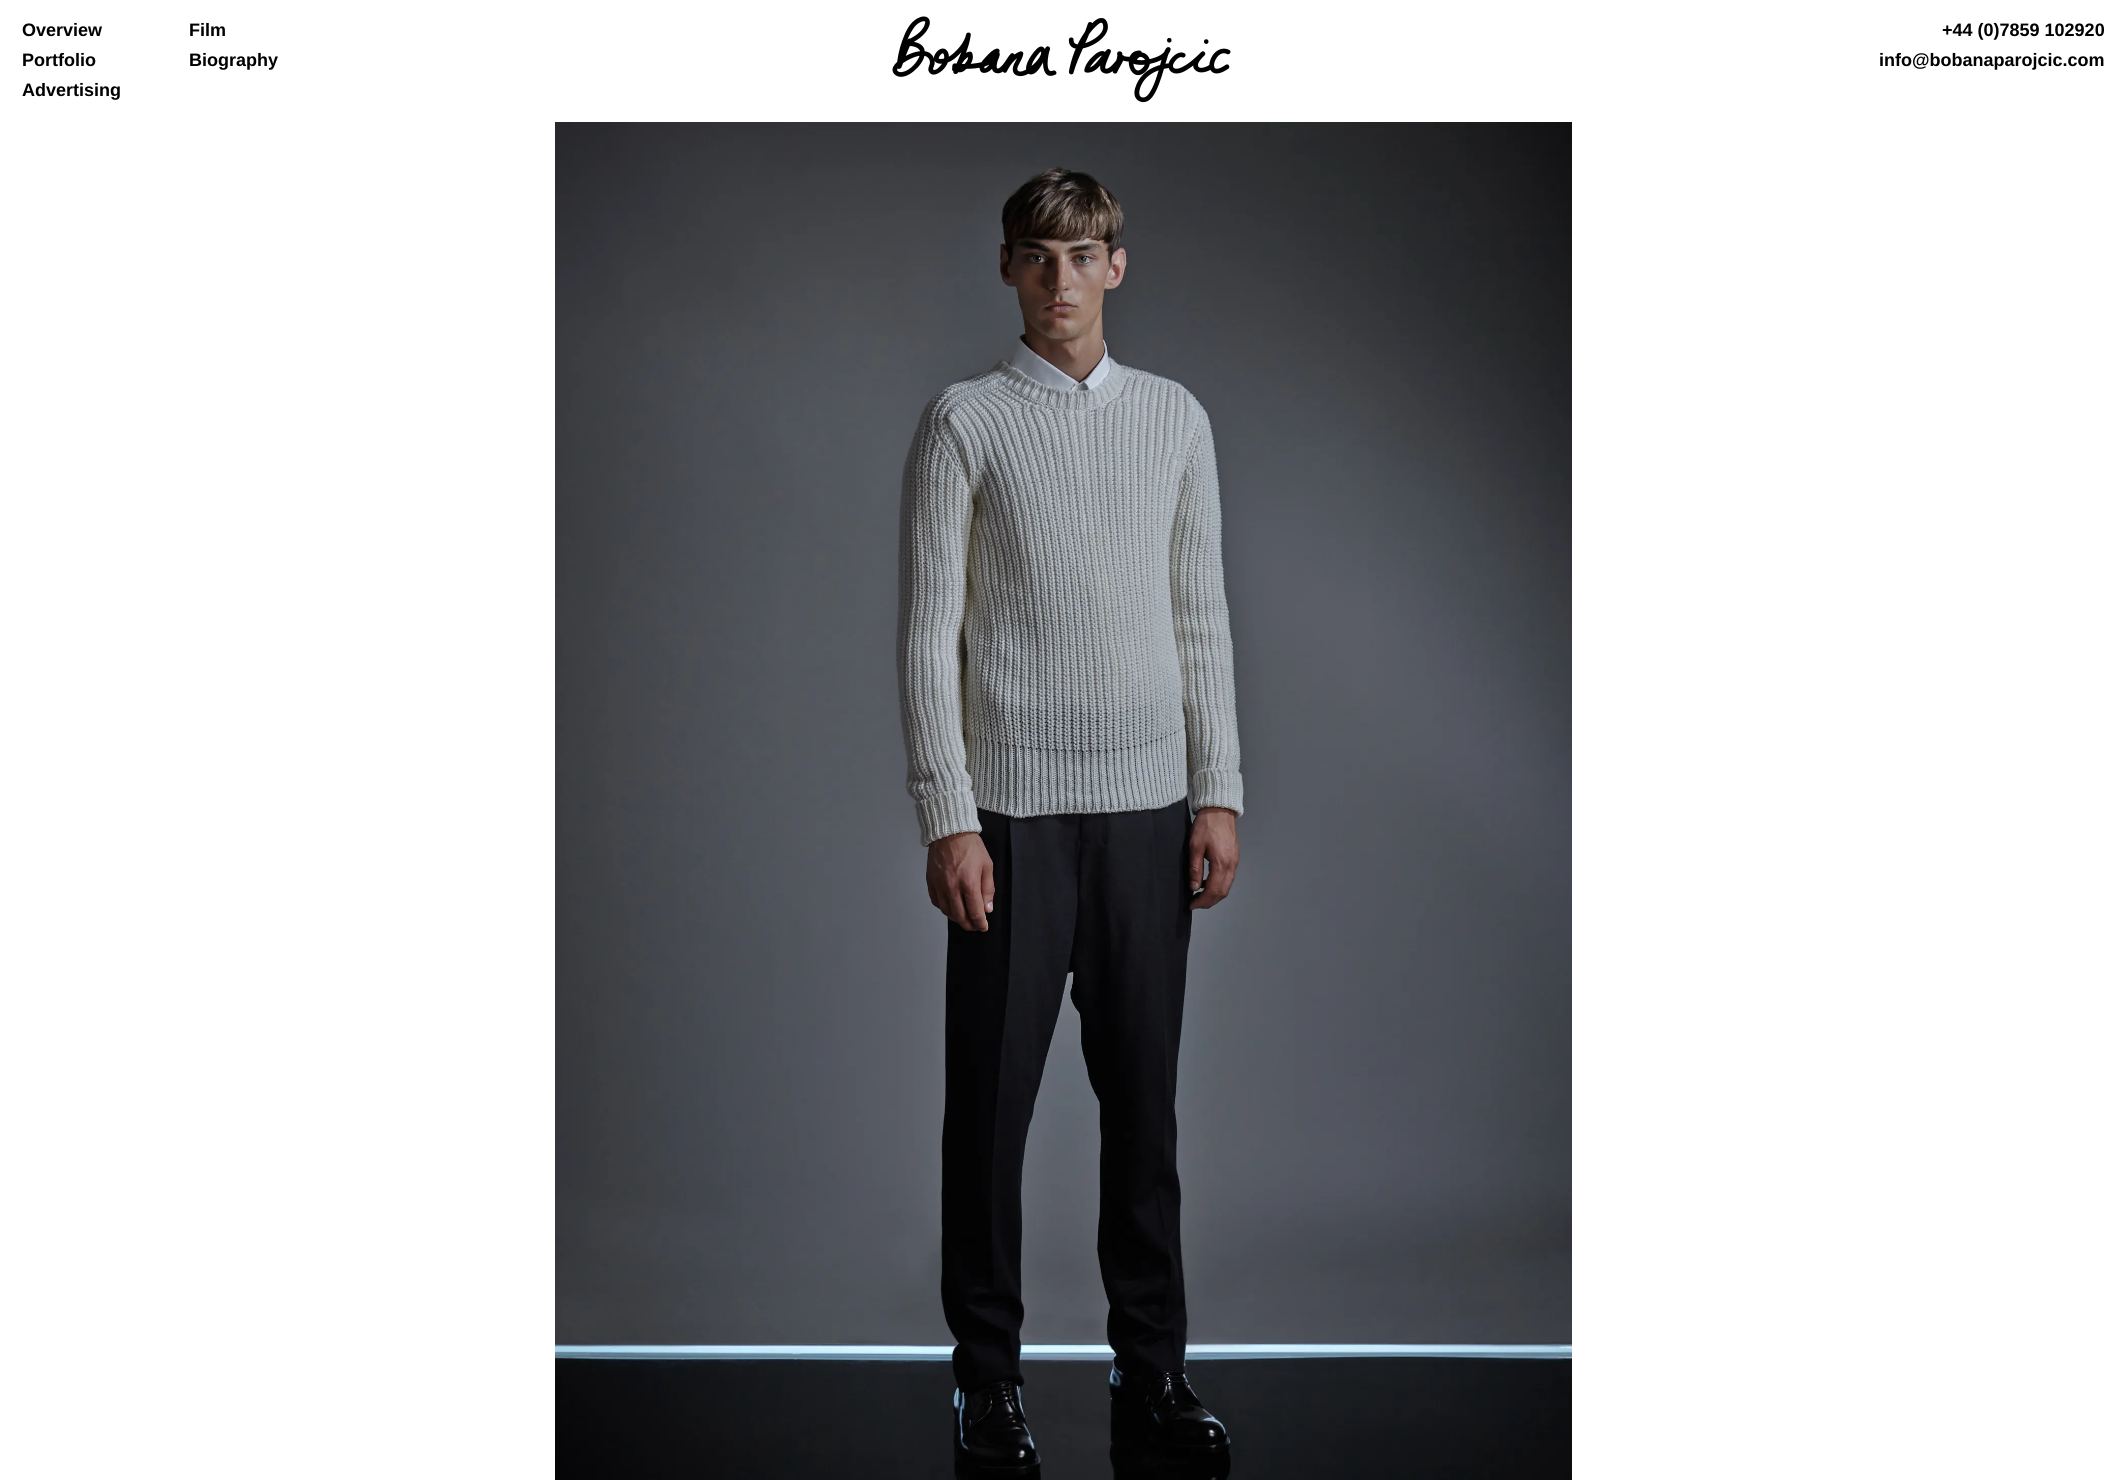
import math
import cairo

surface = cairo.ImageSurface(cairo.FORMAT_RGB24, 2127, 1480)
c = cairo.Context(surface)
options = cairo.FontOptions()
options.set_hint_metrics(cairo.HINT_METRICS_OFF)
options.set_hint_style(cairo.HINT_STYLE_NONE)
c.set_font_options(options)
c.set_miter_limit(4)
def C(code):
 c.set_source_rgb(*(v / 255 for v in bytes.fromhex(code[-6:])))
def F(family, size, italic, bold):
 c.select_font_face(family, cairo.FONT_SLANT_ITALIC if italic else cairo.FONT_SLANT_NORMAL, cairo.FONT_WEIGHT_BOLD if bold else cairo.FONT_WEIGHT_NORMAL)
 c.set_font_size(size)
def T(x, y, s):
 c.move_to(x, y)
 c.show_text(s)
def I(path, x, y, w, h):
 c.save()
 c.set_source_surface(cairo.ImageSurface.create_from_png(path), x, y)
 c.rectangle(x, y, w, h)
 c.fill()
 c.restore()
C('ffffff')
c.paint()
F('Liberation Sans',18,0,1)
C('000000')
T(22,36,'Overview')
T(189,36,'Film')
T(22,66,'Portfolio')
T(189,66,'Biography')
T(22,96,'Advertising')
I('1.png',892,16,339,87)
T(1942,36,'+44 (0)7859 102920')
T(1879,66,'info@bobanaparojcic.com')
I('2.png',555,122,1017,1358)
surface.write_to_png('o.png')
